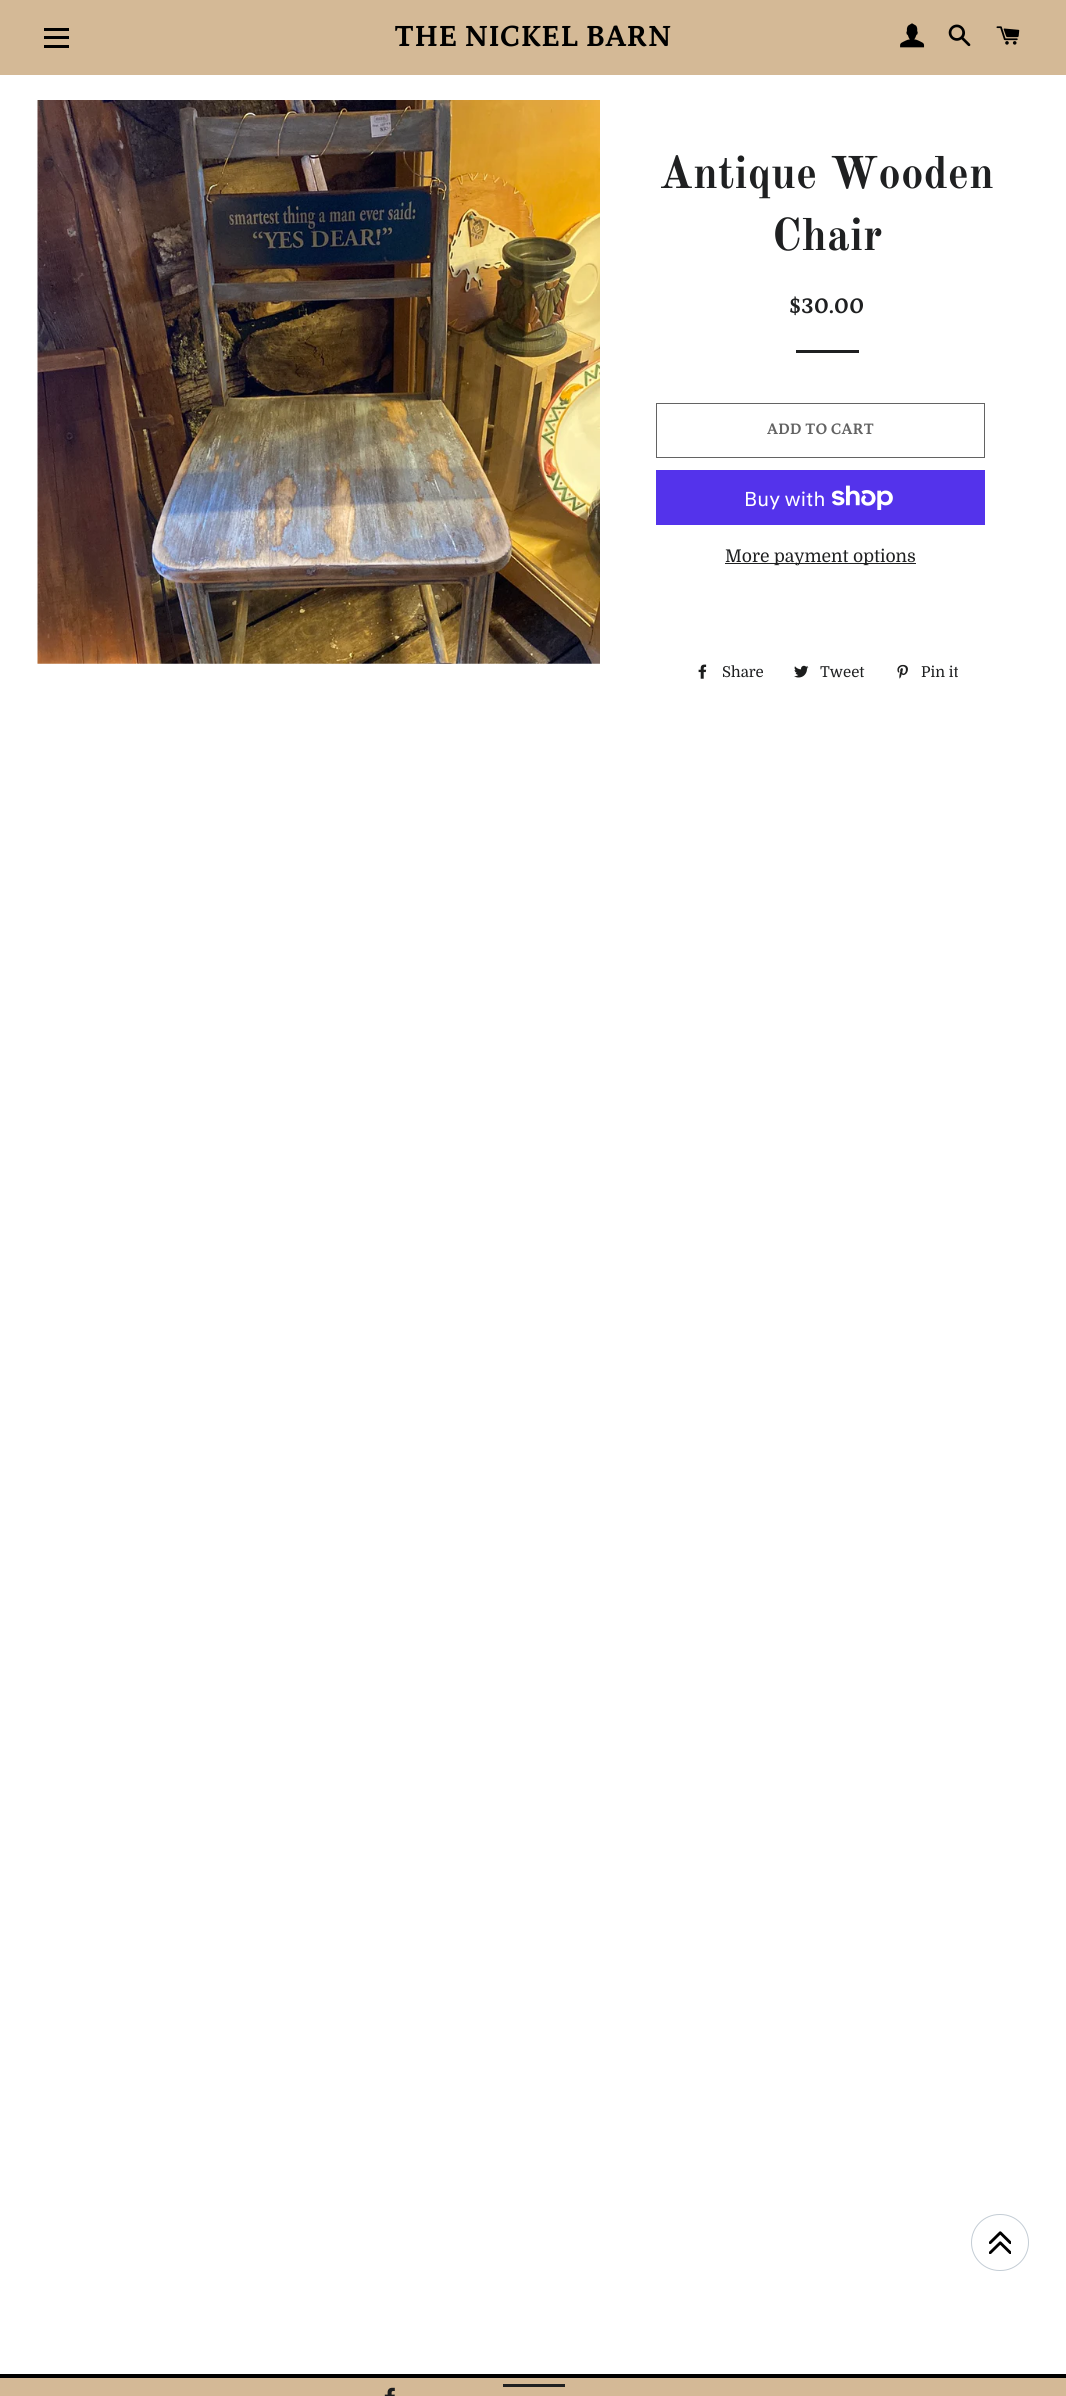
import math
import cairo

surface = cairo.ImageSurface(cairo.FORMAT_RGB24, 1066, 2396)
c = cairo.Context(surface)
options = cairo.FontOptions()
options.set_hint_metrics(cairo.HINT_METRICS_OFF)
options.set_hint_style(cairo.HINT_STYLE_NONE)
c.set_font_options(options)
c.set_miter_limit(4)
def C(code):
 c.set_source_rgb(*(v / 255 for v in bytes.fromhex(code[-6:])))
def F(family, size, italic, bold):
 c.select_font_face(family, cairo.FONT_SLANT_ITALIC if italic else cairo.FONT_SLANT_NORMAL, cairo.FONT_WEIGHT_BOLD if bold else cairo.FONT_WEIGHT_NORMAL)
 c.set_font_size(size)
def T(x, y, s):
 c.move_to(x, y)
 c.show_text(s)
def R(x, y, w, h):
 c.rectangle(x, y, w, h)
 c.fill()
def Q(x, y, w, h, r):
 c.new_sub_path()
 for i, (u, v) in enumerate([(x + w - r, y + h - r), (x + r, y + h - r), (x + r, y + r), (x + w - r, y + r)]):
  c.arc(u, v, r, i * math.pi / 2, (i + 1) * math.pi / 2)
 c.close_path()
def I(path, x, y, w, h):
 c.save()
 c.set_source_surface(cairo.ImageSurface.create_from_png(path), x, y)
 c.rectangle(x, y, w, h)
 c.fill()
 c.restore()
C('ffffff')
c.paint()
C('d4b996')
R(0,0,1066,75)
C('000000')
R(44,28,25,3)
R(44,36,25,3)
R(44,45,25,3)
F('Petrona',31.25,0,1)
T(394,46,'THE NICKEL BARN')
I('1.png',900,23,25,25)
I('2.png',948,24,23,23)
I('3.png',996,26,24,19)
I('4.png',37,100,563,564)
F('Old Standard TT',45,0,1)
C('1f2021')
T(659,188,'Antique Wooden')
T(772,250,'Chair')
F('Petrona',22.5,0,1)
T(789,313,'$30.00')
R(796,350,63,3)
c.rectangle(656.5,403.5,328,54)
C('636363')
c.set_line_width(1)
c.stroke()
F('Petrona',16.25,0,1)
T(767,434,'ADD TO CART')
C('5433eb')
R(656,470,329,55)
F('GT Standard',20,0,0)
C('ffffff')
T(744,506,'Buy with')
I('5.png',831,485,62,25)
C('1f2021')
R(725,563,191,1)
F('Domine',17.5,0,0)
T(725,562,'More payment options')
I('6.png',698,664,9,15)
F('Domine',15,0,0)
T(722,677,'Share')
I('7.png',794,665,15,13)
T(820,677,'Tweet')
I('8.png',897,664,11,15)
T(921,677,'Pin it')
C('000000')
R(0,2374,1066,4)
C('d4b996')
R(0,2378,1066,18)
I('9.png',384,2387,11,9)
C('1f2021')
R(503,2384,62,3)
Q(971.5,2214.5,57,56,28)
C('c4cdd5')
c.stroke()
I('10.png',989,2231,22,23)
surface.write_to_png('o.png')
